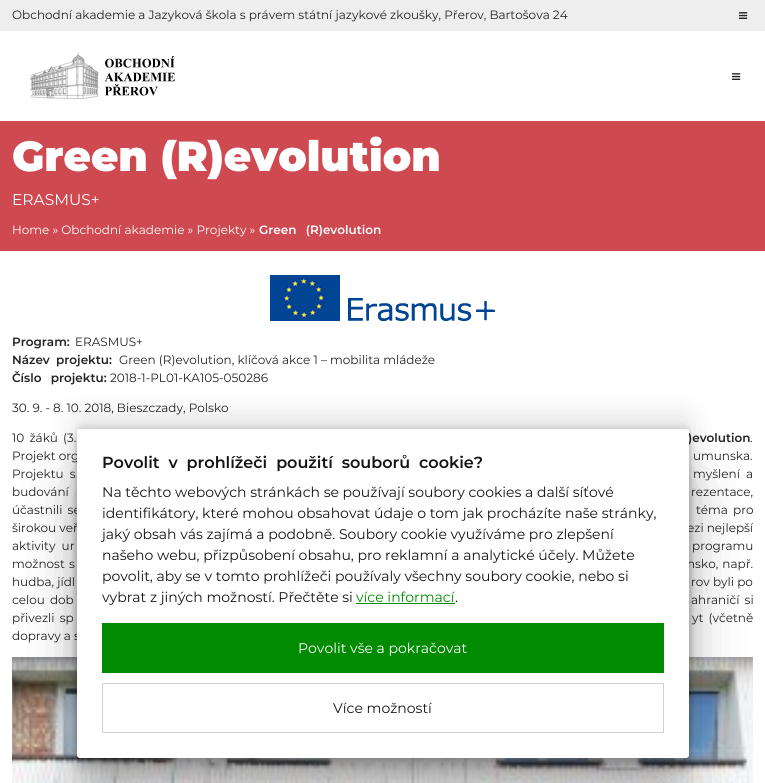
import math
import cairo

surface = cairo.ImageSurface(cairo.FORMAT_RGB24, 765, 783)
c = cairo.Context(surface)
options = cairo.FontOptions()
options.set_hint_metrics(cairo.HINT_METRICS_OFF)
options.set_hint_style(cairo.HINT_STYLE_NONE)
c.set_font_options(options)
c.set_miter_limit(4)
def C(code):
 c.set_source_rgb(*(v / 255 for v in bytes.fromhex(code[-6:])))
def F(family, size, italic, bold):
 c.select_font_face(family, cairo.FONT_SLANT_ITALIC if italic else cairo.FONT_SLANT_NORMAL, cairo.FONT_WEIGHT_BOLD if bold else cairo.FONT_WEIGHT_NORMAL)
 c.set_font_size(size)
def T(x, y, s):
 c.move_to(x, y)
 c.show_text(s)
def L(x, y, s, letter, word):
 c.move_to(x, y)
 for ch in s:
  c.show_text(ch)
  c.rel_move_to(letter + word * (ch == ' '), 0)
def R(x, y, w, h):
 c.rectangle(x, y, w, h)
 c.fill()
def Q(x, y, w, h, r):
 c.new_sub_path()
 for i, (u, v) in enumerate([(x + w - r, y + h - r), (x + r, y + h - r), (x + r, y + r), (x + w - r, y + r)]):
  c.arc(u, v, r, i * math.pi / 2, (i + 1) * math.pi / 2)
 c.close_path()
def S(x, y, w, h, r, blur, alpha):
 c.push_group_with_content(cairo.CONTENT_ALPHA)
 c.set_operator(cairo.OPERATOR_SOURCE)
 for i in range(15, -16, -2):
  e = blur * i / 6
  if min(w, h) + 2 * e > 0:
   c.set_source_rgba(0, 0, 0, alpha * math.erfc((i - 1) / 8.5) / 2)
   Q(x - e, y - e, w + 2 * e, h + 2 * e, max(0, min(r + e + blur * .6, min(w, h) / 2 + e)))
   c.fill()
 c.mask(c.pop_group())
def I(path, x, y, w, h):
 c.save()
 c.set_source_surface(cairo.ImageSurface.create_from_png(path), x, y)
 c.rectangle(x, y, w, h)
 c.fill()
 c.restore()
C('eeeeee')
c.paint()
F('Montserrat',12,0,0)
C('222222')
T(12,19,'Obchodní akademie a Jazyková škola s právem státní jazykové zkoušky, Přerov, Bartošova 24')
I('1.png',739,12,9,7)
C('ffffff')
R(0,31,765,90)
I('2.png',30,52,145,47)
I('3.png',732,73,9,7)
C('cf4951')
R(0,121,765,130)
F('Montserrat Black',42,0,0)
C('ffffff')
T(12,171,'Green (R)evolution')
F('Montserrat',15.5,0,0)
T(12,205,'ERASMUS+')
F('Montserrat',12,0,0)
T(12,234,'Home » Obchodní akademie » Projekty »')
F('Montserrat SemiBold',12,0,0)
L(259,234,'Green (R)evolution',0,6)
R(0,251,765,532)
I('4.png',270,275,225,46)
C('222222')
T(12,346,'Program:')
F('Montserrat',12,0,0)
T(75,346,'ERASMUS+')
F('Montserrat SemiBold',12,0,0)
L(12,364,'Název projektu:',0,3)
F('Montserrat',12,0,0)
T(119,364,'Green (R)evolution, klíčová akce 1 – mobilita mládeže')
F('Montserrat SemiBold',12,0,0)
L(12,382,'Číslo projektu:',0,6)
F('Montserrat',12,0,0)
T(110,382,'2018-1-PL01-KA105-050286')
T(12,412,'30. 9. - 8. 10. 2018, Bieszczady, Polsko')
L(12,442,'10 žáků (3.',0,2)
F('Montserrat SemiBold',12,0,0)
L(688,442,')evolution',0,8)
F('Montserrat',12,0,0)
T(750,442,'.')
T(12,460,'Projekt org')
T(693,460,'umunska.')
L(12,478,'Projektu s',0,3)
L(693,478,'myšlení a',0,3)
L(12,496,'budování',0,4)
L(691,496,'rezentace,',0,4)
L(12,514,'účastnili se',0,2)
L(696,514,'téma pro',0,2)
T(12,532,'širokou veř')
T(687,532,'ezi nejlepší')
L(12,550,'aktivity ur',0,3)
L(692,550,'programu',0,3)
L(12,568,'možnost s',0,1)
L(687,568,'nsko, např.',0,1)
T(12,586,'hudba, jídl')
T(691,586,'rov byli po')
L(12,604,'celou dob',0,2)
L(691,604,'ahraničí si',0,2)
L(12,622,'přivezli sp',0,2)
L(692,622,'yt (včetně',0,2)
T(12,640,'dopravy a s')
I('5.png',12,657,741,126)
C('000000')
S(77,426,612,329,3,2.5,.09)
S(77,441,612,329,3,6.5,.17)
S(77,433,612,329,3,3,.12)
S(77,417,612,329,3,15,.12)
S(77,483,612,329,3,27.5,.25)
C('ffffff')
Q(77,429,612,329,3)
c.fill()
F('Montserrat SemiBold',16,0,0)
C('141414')
L(102,468,'Povolit v prohlížeči použití souborů cookie?',0,4.5)
F('Montserrat',14,0,0)
T(102,497,'Na těchto webových stránkách se používají soubory cookies a další síťové')
T(102,518,'identifikátory, které mohou obsahovat údaje o tom jak procházíte naše stránky,')
T(102,539,'jaký obsah vás zajímá a podobně. Soubory cookie využíváme pro zlepšení')
T(102,560,'našeho webu, přizpůsobení obsahu, pro reklamní a analytické účely. Můžete')
T(102,581,'povolit, aby se v tomto prohlížeči používaly všechny soubory cookie, nebo si')
T(102,602,'vybrat z jiných možností. Přečtěte si')
C('008b00')
T(356,602,'více informací')
R(356,603,99,1)
C('141414')
T(455,602,'.')
C('008b00')
R(102,623,562,50)
C('ffffff')
T(298,653,'Povolit vše a pokračovat')
c.rectangle(102.5,683.5,561,49)
C('d0d0d0')
c.set_line_width(1)
c.stroke()
C('141414')
T(333,713,'Více možností')
surface.write_to_png('o.png')
